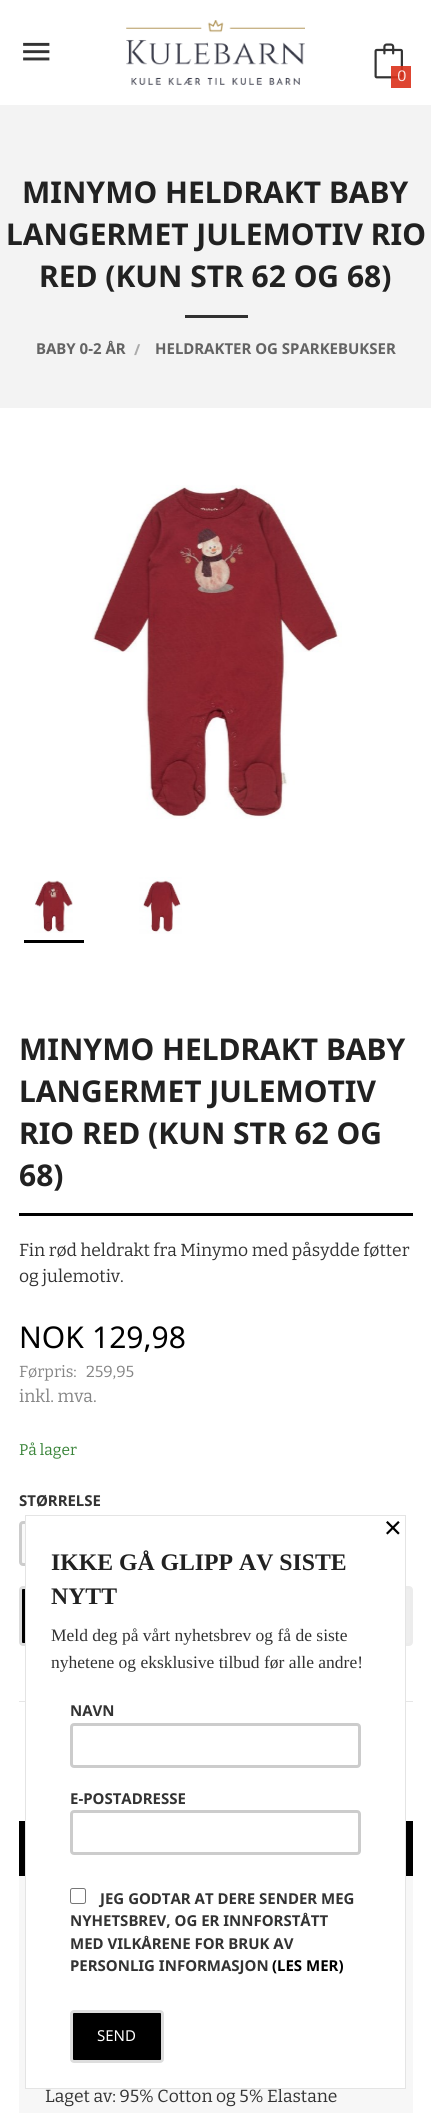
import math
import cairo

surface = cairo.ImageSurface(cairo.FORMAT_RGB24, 431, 2113)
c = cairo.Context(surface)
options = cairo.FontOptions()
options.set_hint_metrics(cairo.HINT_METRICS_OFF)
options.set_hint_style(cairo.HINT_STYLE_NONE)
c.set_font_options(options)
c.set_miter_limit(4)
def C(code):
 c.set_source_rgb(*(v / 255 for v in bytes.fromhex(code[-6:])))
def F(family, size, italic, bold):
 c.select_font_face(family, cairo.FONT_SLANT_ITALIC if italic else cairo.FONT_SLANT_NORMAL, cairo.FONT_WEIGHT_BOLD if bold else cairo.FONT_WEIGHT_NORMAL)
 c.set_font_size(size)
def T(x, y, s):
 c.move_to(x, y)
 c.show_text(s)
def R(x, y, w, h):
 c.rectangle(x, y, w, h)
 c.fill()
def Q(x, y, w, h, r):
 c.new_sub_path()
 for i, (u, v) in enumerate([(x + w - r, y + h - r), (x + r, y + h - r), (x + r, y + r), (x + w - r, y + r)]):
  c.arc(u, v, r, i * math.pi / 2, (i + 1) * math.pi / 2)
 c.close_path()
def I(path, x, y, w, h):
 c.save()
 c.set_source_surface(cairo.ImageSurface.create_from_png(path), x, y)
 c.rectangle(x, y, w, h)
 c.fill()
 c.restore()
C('f3f3f3')
c.paint()
C('ffffff')
R(0,0,431,105)
I('1.png',23,42,27,19)
I('2.png',126,20,179,65)
I('3.png',374,43,29,36)
c.set_source_rgba(0.859,0.192,0.106,0.9)
R(391,66,20,22)
F('Bitter',15,0,0)
C('fbecea')
T(397,81,'0')
F('Noto Sans',30,0,1)
C('212121')
T(22,203,'MINYMO HELDRAKT BABY')
T(6,245,'LANGERMET JULEMOTIV RIO')
T(39,287,'RED (KUN STR 62 OG 68)')
C('303030')
R(185,315,63,3)
F('Noto Sans',15,0,1)
C('636363')
T(36,354,'BABY 0-2 ÅR')
C('aaaaaa')
T(134,355,'/')
C('636363')
T(155,354,'HELDRAKTER OG SPARKEBUKSER')
C('ffffff')
R(0,408,431,1705)
I('4.png',92,485,250,334)
C('000000')
R(24,940,60,3)
I('5.png',34,880,39,53)
I('6.png',139,877,43,57)
R(19,1213,394,3)
F('Noto Sans',30,0,1)
C('212121')
T(19,1060,'MINYMO HELDRAKT BABY')
T(19,1102,'LANGERMET JULEMOTIV')
T(19,1144,'RIO RED (KUN STR 62 OG')
T(19,1186,'68)')
F('Bitter',17.5,0,0)
C('333333')
T(19,1256,'Fin rød heldrakt fra Minymo med påsydde føtter')
T(19,1282,'og julemotiv.')
F('Noto Sans',30,0,0)
C('000000')
T(19,1348,'NOK')
T(92,1348,'129,98')
F('Bitter',16,0,0)
C('858585')
T(19,1377,'Førpris:')
T(86,1377,'259,95')
F('Bitter',17.5,0,0)
T(19,1402,'inkl. mva.')
F('Bitter',15.5,0,0)
C('398439')
T(19,1455,'På lager')
F('Noto Sans',15,0,1)
C('333333')
T(19,1506,'STØRRELSE')
C('fafafa')
Q(20.5,1522.5,176,42,2.5)
c.fill_preserve()
C('cccccc')
c.set_line_width(3)
c.stroke()
C('000000')
Q(20.5,1587.5,176,57,2.5)
c.fill_preserve()
C('dddddd')
c.stroke()
C('eeeeee')
Q(236.5,1587.5,175,57,2.5)
c.fill_preserve()
C('ececec')
c.stroke()
C('e6e6e6')
R(19,1701,394,1)
C('f7f7f7')
R(19,1876,394,237)
C('000000')
R(19,1821,394,55)
F('Bitter',17.5,0,0)
C('333333')
T(45,2102,'Laget av: 95% Cotton og 5% Elastane')
C('ffffff')
R(26,1521,379,567)
c.rectangle(25.5,1515.5,380,573)
C('e4e4e4')
c.set_line_width(1)
c.stroke()
F('Bitter',35,0,0)
C('000000')
T(384,1540,'×')
F('Liberation Serif',23.75,0,1)
C('212121')
T(51,1570,'IKKE GÅ GLIPP AV SISTE')
T(51,1604,'NYTT')
F('Liberation Serif',17.5,0,0)
C('333333')
T(51,1641,'Meld deg på vårt nyhetsbrev og få de siste')
T(51,1668,'nyhetene og eksklusive tilbud før alle andre!')
F('Noto Sans',15,0,1)
T(70,1716,'NAVN')
Q(71.5,1724.5,288,42,2.5)
C('cccccc')
c.set_line_width(3)
c.stroke()
C('333333')
T(70,1804,'E-POSTADRESSE')
Q(71.5,1811.5,288,42,2.5)
C('cccccc')
c.stroke()
Q(70.5,1888.5,15,15,2)
C('767676')
c.set_line_width(1)
c.stroke()
C('333333')
T(100,1904,'JEG GODTAR AT DERE SENDER MEG')
T(70,1926,'NYHETSBREV, OG ER INNFORSTÅTT')
T(70,1949,'MED VILKÅRENE FOR BRUK AV')
T(70,1971,'PERSONLIG INFORMASJON')
C('000000')
T(272,1971,'(LES MER)')
Q(71.5,2011.5,91,50,2.5)
c.fill_preserve()
C('dddddd')
c.set_line_width(3)
c.stroke()
F('Noto Sans',15,0,0)
C('ffffff')
T(97,2041,'SEND')
surface.write_to_png('o.png')
